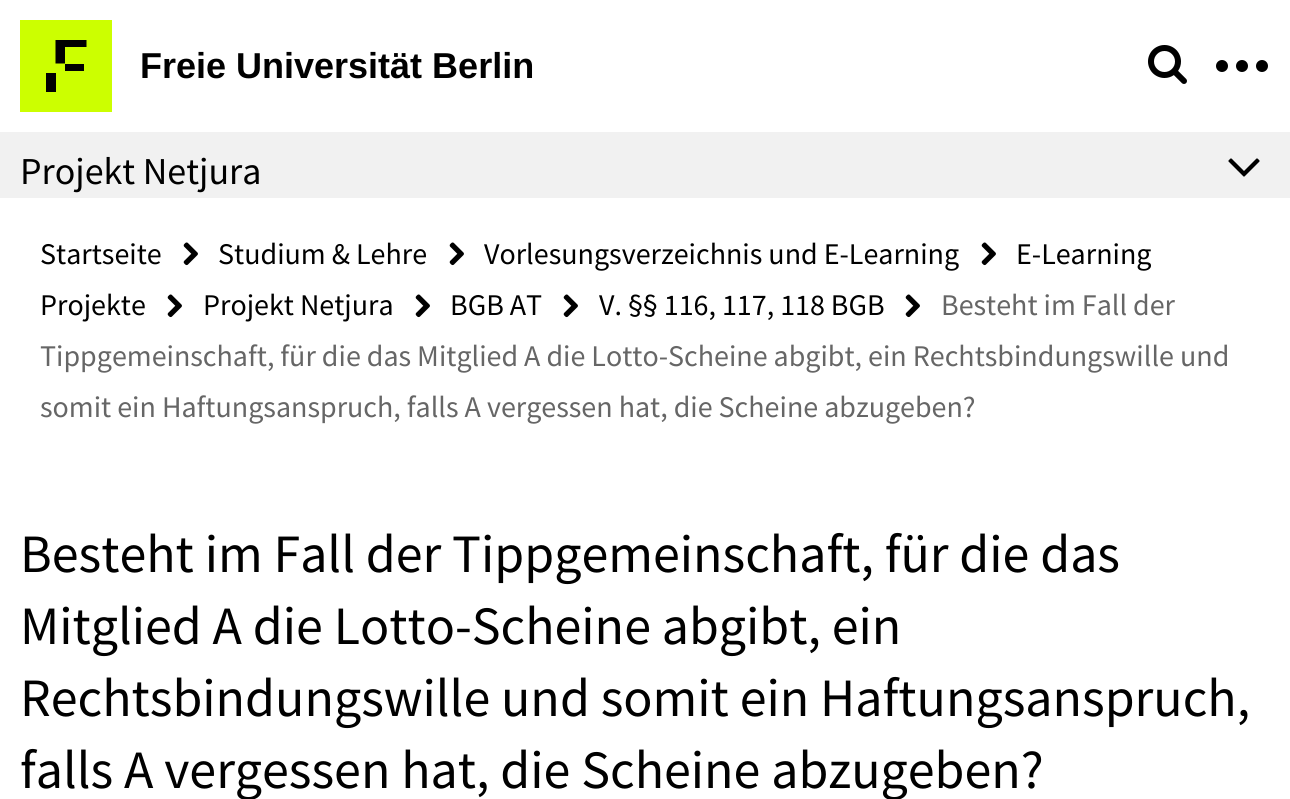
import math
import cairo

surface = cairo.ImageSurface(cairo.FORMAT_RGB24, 1290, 799)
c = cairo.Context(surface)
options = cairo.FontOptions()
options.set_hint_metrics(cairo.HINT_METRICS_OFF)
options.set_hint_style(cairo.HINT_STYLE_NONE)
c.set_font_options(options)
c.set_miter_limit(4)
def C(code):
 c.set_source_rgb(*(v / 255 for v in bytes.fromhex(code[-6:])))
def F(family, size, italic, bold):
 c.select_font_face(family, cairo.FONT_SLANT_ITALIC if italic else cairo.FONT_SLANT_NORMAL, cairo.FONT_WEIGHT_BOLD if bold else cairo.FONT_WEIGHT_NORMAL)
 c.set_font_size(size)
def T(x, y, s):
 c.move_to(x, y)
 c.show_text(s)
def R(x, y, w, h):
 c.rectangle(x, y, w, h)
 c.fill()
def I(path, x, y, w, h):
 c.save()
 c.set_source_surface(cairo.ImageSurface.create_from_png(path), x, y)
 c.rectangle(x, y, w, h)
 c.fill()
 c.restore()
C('ffffff')
c.paint()
C('ccff00')
R(20,20,92,92)
C('000000')
c.new_path()
c.move_to(55.5,40)
c.line_to(86.5,40)
c.line_to(86.5,47)
c.line_to(65,47)
c.line_to(65,63.5)
c.line_to(55.5,63.5)
c.close_path()
c.fill()
R(65,64,19,7)
R(46,73,10,19)
F('Liberation Sans',36,0,1)
T(140,78,'Freie Universität Berlin')
I('1.png',1148,45,39,39)
c.arc(1222,66,6,0,2 * math.pi)
c.fill()
c.arc(1242,66,6,0,2 * math.pi)
c.fill()
c.arc(1262,66,6,0,2 * math.pi)
c.fill()
C('f1f1f1')
R(0,132,1290,66)
F('Source Sans Pro',38,0,0)
C('000000')
T(20,184,'Projekt Netjura')
I('2.png',1228,158,32,19)
F('Source Sans Pro',30,0,0)
T(40,264,'Startseite')
I('3.png',183,242,15,24)
T(218,264,'Studium & Lehre')
I('3.png',449,242,15,24)
T(484,264,'Vorlesungsverzeichnis und E-Learning')
I('3.png',981,242,15,24)
T(1016,264,'E-Learning')
T(40,315,'Projekte')
I('3.png',167,294,15,24)
T(203,315,'Projekt Netjura')
I('3.png',415,294,15,24)
T(450,315,'BGB AT')
I('3.png',563,294,15,24)
T(599,315,'V. §§ 116, 117, 118 BGB')
I('3.png',905,294,15,24)
C('666666')
T(941,315,'Besteht im Fall der')
T(40,366,'Tippgemeinschaft, für die das Mitglied A die Lotto-Scheine abgibt, ein Rechtsbindungswille und')
T(40,417,'somit ein Haftungsanspruch, falls A vergessen hat, die Scheine abzugeben?')
F('Source Sans Pro',54,0,0)
C('000000')
T(20,572,'Besteht im Fall der Tippgemeinschaft, für die das')
T(20,644,'Mitglied A die Lotto-Scheine abgibt, ein')
T(20,716,'Rechtsbindungswille und somit ein Haftungsanspruch,')
T(20,788,'falls A vergessen hat, die Scheine abzugeben?')
surface.write_to_png('o.png')
